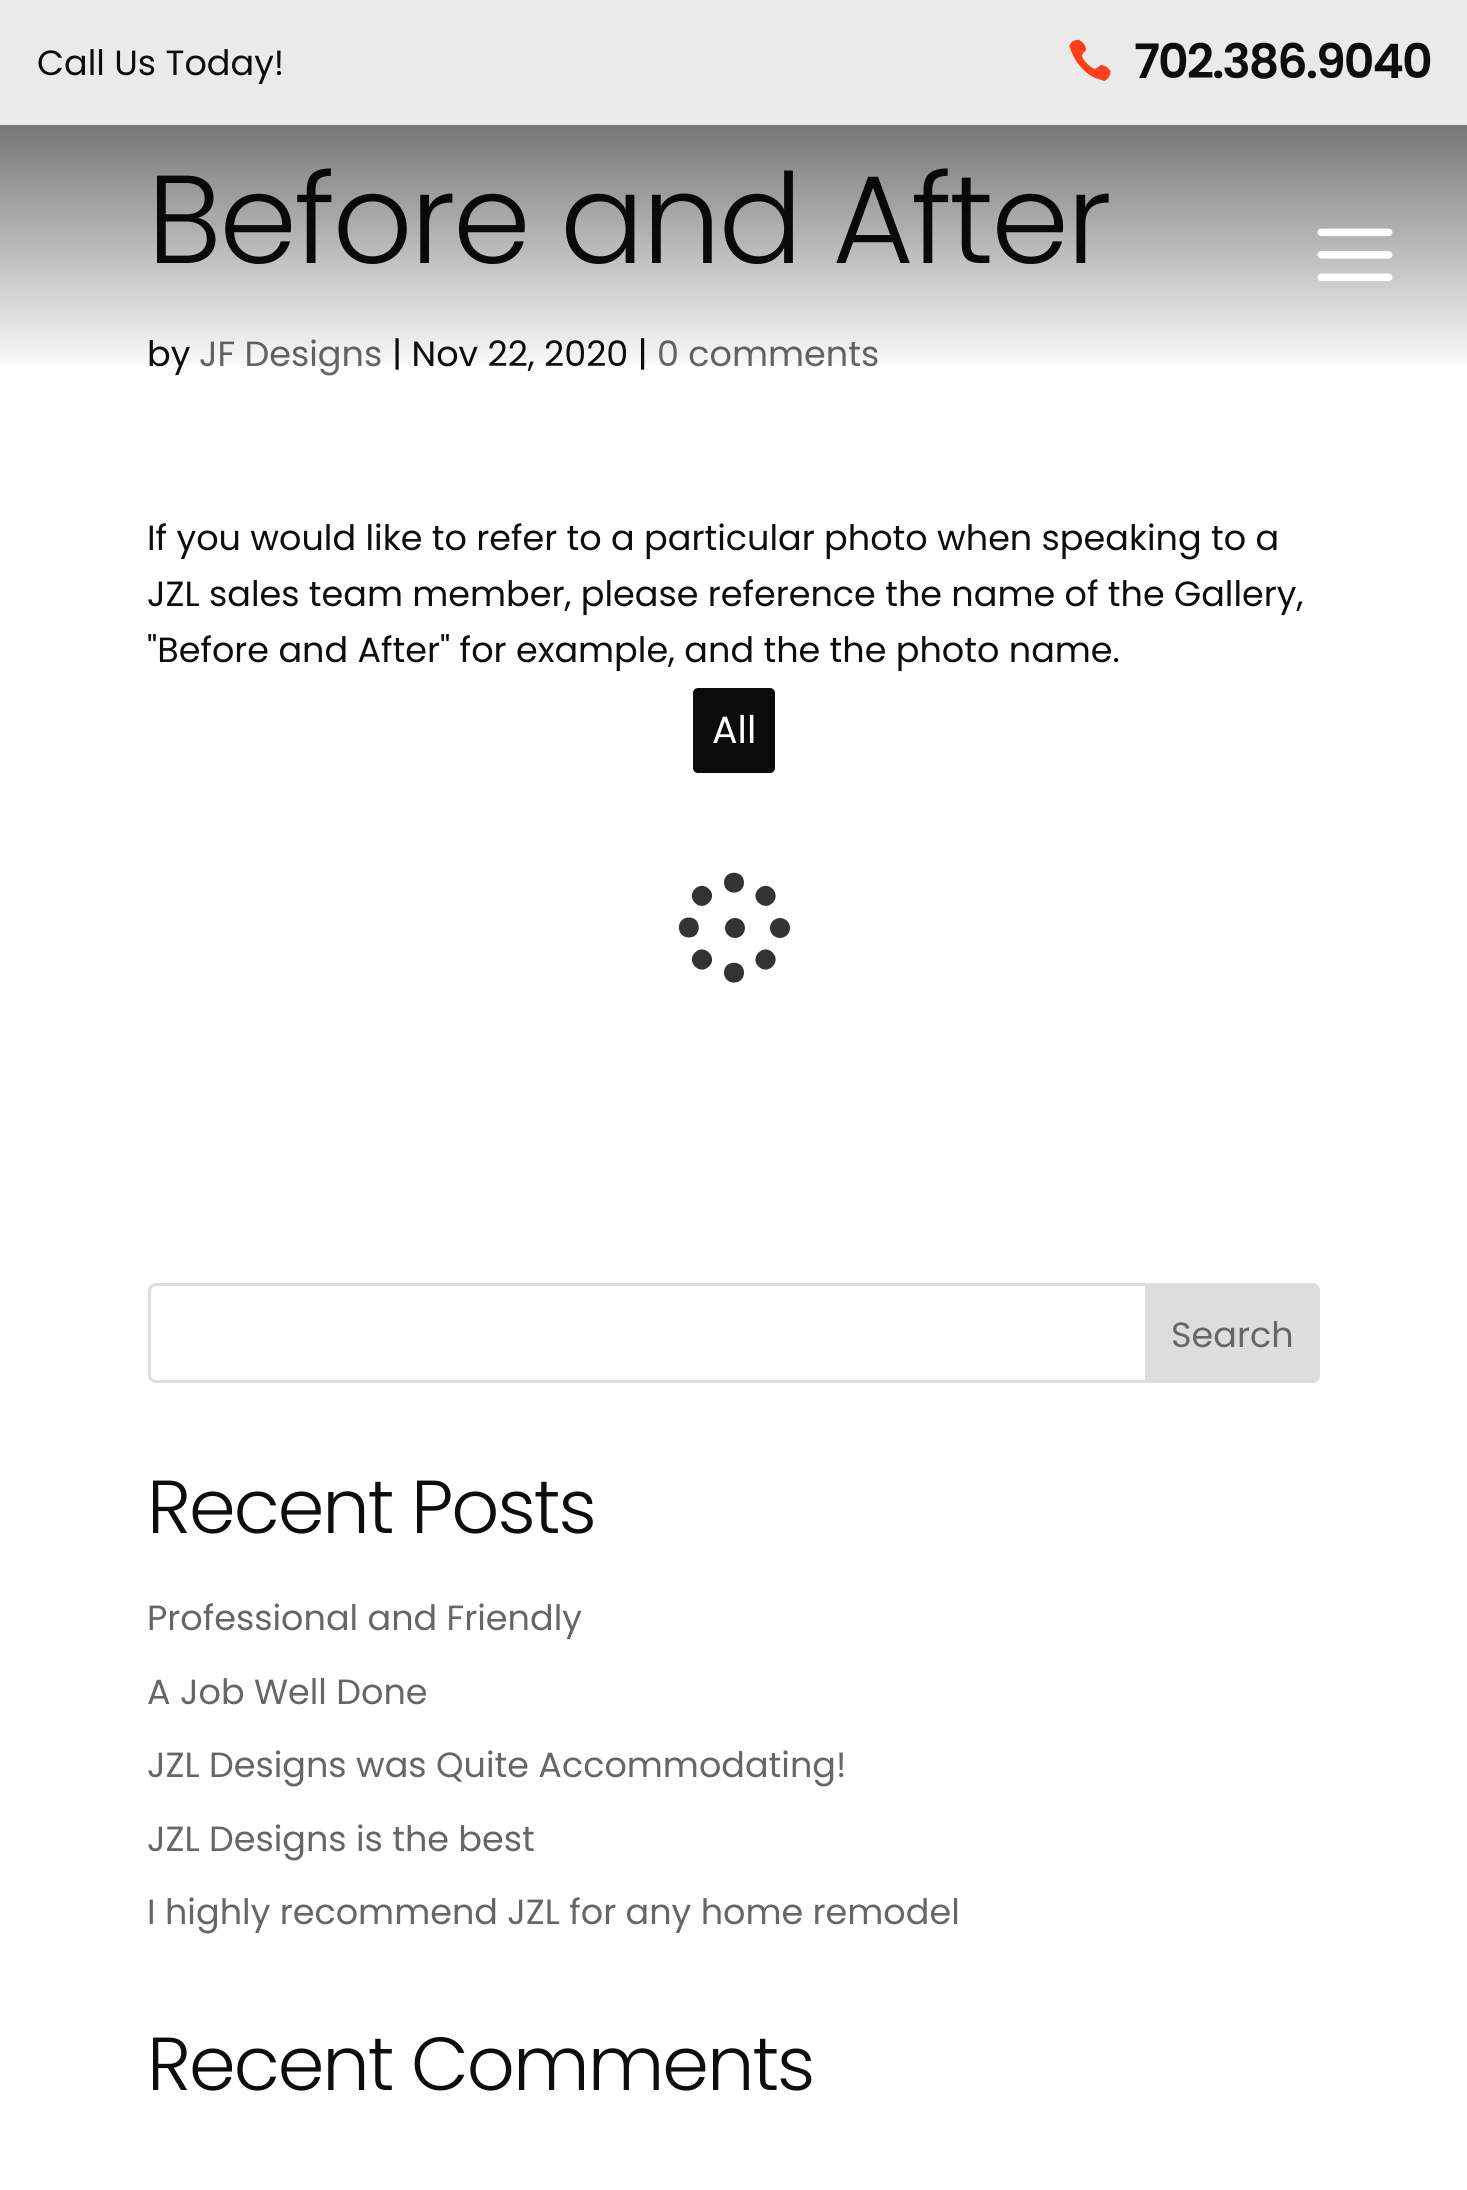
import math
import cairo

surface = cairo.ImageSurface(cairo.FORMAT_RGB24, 1467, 2190)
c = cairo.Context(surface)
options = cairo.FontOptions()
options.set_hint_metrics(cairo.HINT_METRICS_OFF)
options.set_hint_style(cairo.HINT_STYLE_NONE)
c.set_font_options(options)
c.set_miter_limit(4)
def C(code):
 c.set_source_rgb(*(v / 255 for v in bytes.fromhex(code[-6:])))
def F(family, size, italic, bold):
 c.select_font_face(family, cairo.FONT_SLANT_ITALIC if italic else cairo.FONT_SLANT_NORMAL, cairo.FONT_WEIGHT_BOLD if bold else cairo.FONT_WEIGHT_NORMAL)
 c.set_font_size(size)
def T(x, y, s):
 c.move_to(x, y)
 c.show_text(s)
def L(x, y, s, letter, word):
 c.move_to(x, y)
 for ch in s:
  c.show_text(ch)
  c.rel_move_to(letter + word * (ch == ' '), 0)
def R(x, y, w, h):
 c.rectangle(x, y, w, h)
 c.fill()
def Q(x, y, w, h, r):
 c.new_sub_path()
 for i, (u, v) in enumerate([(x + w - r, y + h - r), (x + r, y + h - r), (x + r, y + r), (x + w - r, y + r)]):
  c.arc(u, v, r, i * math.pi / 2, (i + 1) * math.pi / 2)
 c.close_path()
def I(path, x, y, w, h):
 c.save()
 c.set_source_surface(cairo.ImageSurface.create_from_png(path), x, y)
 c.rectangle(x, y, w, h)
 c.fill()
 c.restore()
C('ffffff')
c.paint()
F('Poppins Light',125,0,0)
C('0d0d0d')
L(147,263,'Before and After',-2.5,0)
F('Poppins',35,0,0)
T(147,366,'by')
C('666666')
T(199,366,'JF Designs')
C('0d0d0d')
T(392,366,'| Nov 22, 2020 |')
C('666666')
T(657,366,'0 comments')
gradient = cairo.LinearGradient(734,0,734,375)
gradient.add_color_stop_rgba(0,0,0,0,.8)
gradient.add_color_stop_rgba(1,0,0,0,0)
c.set_source(gradient)
R(0,125,1467,240)
C('eaeaea')
R(0,0,1467,125)
C('0d0d0d')
T(37,75,'Call Us Today!')
I('1.png',1069,39,42,42)
F('Poppins SemiBold',47.5,0,0)
L(1134,78,'702.386.9040',-2,0)
I('2.png',1317,228,76,54)
F('Poppins',35,0,0)
T(147,550,'If you would like to refer to a particular photo when speaking to a')
T(147,606,'JZL sales team member, please reference the name of the Gallery,')
T(147,662,'"Before and After" for example, and the the photo name.')
C('0b0b0b')
Q(693,688,82,85,5)
c.fill()
F('Poppins',38,0,0)
C('ffffff')
T(712,743,'All')
C('333333')
c.new_path()
c.move_to(695,903)
c.curve_to(685.5,893.5,699.5,879.5,709,889)
c.curve_to(718.5,898,704,912,695,903)
c.close_path()
c.move_to(724,882.5)
c.curve_to(724,869.5,744,869.5,744,882.5)
c.curve_to(744,896,724,896,724,882.5)
c.close_path()
c.fill()
c.new_path()
c.move_to(758.5,889)
c.curve_to(768,879.5,782,893.5,772.5,903)
c.curve_to(763.5,912,749,898,758.5,889)
c.close_path()
c.fill()
c.new_path()
c.move_to(709,966.5)
c.curve_to(699.5,976,685.5,961.5,695,952.5)
c.curve_to(704,943,718.5,957.5,709,966.5)
c.close_path()
c.move_to(689,937.5)
c.curve_to(675.5,937.5,675.5,917.5,689,917.5)
c.curve_to(702,917.5,702,937.5,689,937.5)
c.close_path()
c.fill()
c.arc(780,928,10,0,2 * math.pi)
c.fill()
c.new_path()
c.move_to(772.5,952.5)
c.curve_to(782,961.5,768,976,758.5,966.5)
c.curve_to(749,957.5,763.5,943,772.5,952.5)
c.close_path()
c.move_to(744,972.5)
c.curve_to(744,986,724,986,724,972.5)
c.curve_to(724,959.5,744,959.5,744,972.5)
c.close_path()
c.fill()
c.arc(735,928,10,0,2 * math.pi)
c.fill()
Q(149.5,1284.5,1169,97,6.5)
C('dddddd')
c.set_line_width(3)
c.stroke()
c.new_path()
c.move_to(1146.5,1284.5)
c.line_to(1312,1284.5)
c.curve_to(1315.5,1284.5,1318.5,1287.5,1318.5,1291)
c.line_to(1318.5,1375)
c.curve_to(1318.5,1378.5,1315.5,1381.5,1312,1381.5)
c.line_to(1146.5,1381.5)
c.close_path()
c.fill_preserve()
c.stroke()
F('Poppins',35,0,0)
C('666666')
T(1171,1347,'Search')
F('Poppins Light',75,0,0)
C('0d0d0d')
L(147,1533,'Recent Posts',-2,0)
F('Poppins',35,0,0)
C('666666')
T(147,1630,'Professional and Friendly')
T(147,1704,'A Job Well Done')
T(147,1777,'JZL Designs was Quite Accommodating!')
T(147,1851,'JZL Designs is the best')
T(147,1924,'I highly recommend JZL for any home remodel')
F('Poppins Light',75,0,0)
C('0d0d0d')
L(147,2090,'Recent Comments',-2,0)
surface.write_to_png('o.png')
